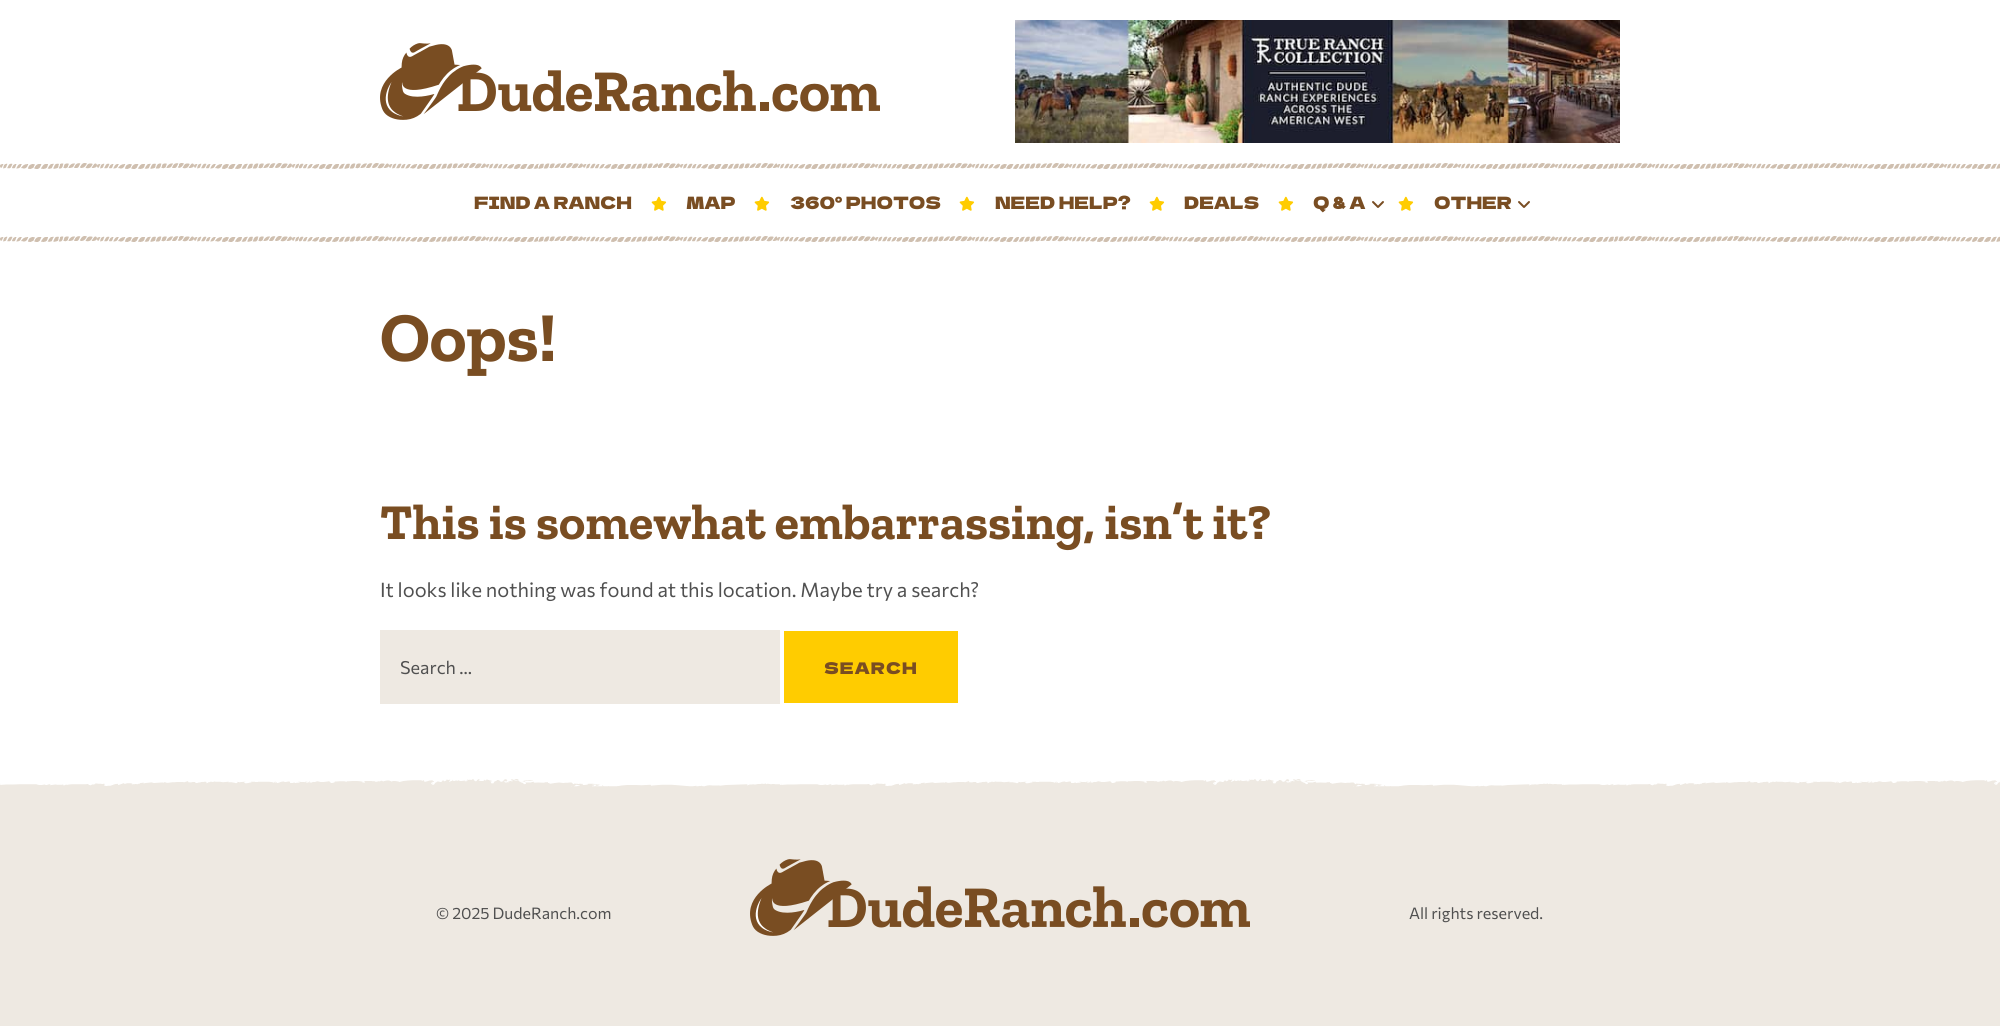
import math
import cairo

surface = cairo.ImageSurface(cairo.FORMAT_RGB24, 2000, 1032)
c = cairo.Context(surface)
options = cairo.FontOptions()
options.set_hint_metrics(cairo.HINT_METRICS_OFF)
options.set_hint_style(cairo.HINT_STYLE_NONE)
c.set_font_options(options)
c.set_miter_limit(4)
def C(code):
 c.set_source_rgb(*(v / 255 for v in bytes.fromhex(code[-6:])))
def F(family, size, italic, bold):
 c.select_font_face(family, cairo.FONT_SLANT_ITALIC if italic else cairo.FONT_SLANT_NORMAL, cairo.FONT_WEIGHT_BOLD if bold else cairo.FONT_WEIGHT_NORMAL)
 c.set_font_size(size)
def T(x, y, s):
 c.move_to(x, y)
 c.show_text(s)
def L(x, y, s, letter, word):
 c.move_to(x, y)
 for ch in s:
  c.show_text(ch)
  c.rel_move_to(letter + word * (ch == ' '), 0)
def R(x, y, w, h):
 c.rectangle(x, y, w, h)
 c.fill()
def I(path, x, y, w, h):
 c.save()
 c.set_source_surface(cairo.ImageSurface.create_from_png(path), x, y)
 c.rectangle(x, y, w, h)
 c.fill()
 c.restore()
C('ffffff')
c.paint()
I('1.png',380,43,500,77)
I('2.png',1015,20,605,123)
I('3.png',0,163,2000,6)
F('Dela Gothic One',17,0,0)
C('794d22')
T(474,209,'FIND A RANCH')
I('4.png',651,196,16,15)
T(686,209,'MAP')
I('4.png',754,196,16,15)
T(790,209,'360° PHOTOS')
I('4.png',959,196,16,15)
T(995,209,'NEED HELP?')
I('4.png',1149,196,16,15)
T(1184,209,'DEALS')
I('4.png',1278,196,16,15)
T(1313,209,'Q & A')
I('5.png',1372,201,12,7)
I('4.png',1398,196,16,15)
T(1434,209,'OTHER')
I('5.png',1518,201,12,7)
I('3.png',0,236,2000,6)
F('Zilla Slab',70,0,1)
T(380,361,'Oops!')
F('Zilla Slab',50,0,1)
T(380,539,'This is somewhat embarrassing, isn’t it?')
F('Commissioner Thin',20,0,0)
C('505050')
T(380,597,'It looks like nothing was found at this location. Maybe try a search?')
C('eee9e2')
R(380,630,400,74)
F('Commissioner Thin',18,0,0)
C('505050')
T(400,674,'Search …')
C('ffcc00')
R(784,631,174,72)
F('Dela Gothic One',16,0,0)
C('794d22')
L(824,674,'SEARCH',1,0)
I('6.png',0,779,2000,247)
F('Commissioner Thin',16,0,0)
C('505050')
T(436,919,'© 2025 DudeRanch.com')
I('7.png',750,859,500,77)
T(1409,919,'All rights reserved.')
surface.write_to_png('o.png')
